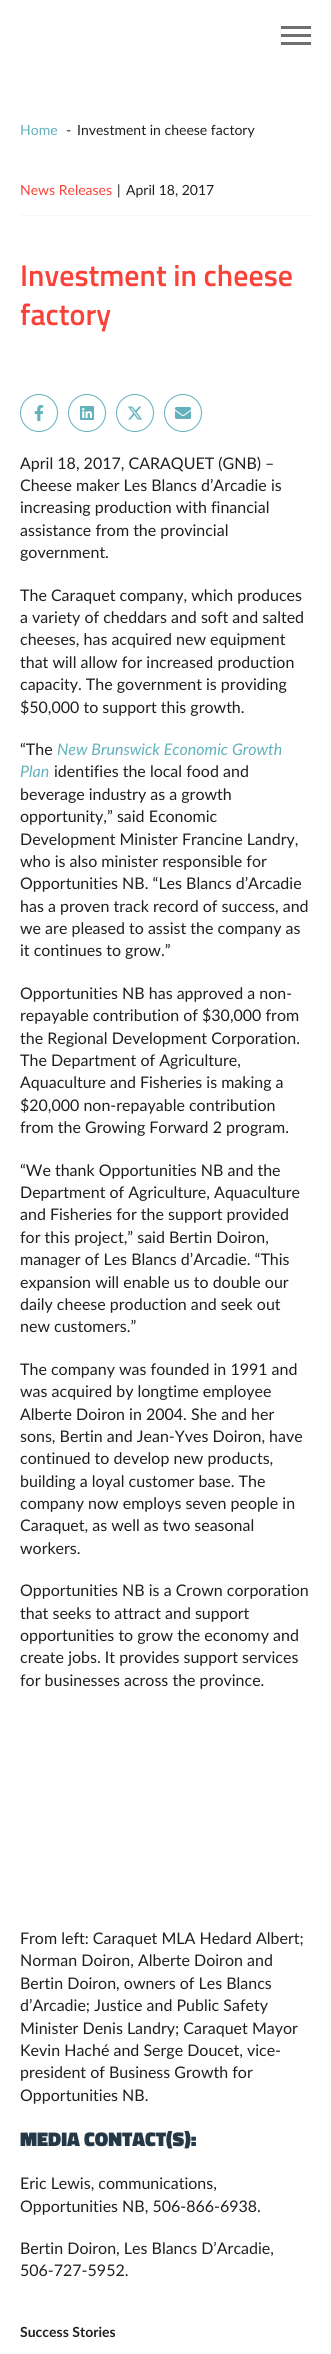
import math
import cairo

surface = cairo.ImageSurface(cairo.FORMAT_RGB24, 331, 2354)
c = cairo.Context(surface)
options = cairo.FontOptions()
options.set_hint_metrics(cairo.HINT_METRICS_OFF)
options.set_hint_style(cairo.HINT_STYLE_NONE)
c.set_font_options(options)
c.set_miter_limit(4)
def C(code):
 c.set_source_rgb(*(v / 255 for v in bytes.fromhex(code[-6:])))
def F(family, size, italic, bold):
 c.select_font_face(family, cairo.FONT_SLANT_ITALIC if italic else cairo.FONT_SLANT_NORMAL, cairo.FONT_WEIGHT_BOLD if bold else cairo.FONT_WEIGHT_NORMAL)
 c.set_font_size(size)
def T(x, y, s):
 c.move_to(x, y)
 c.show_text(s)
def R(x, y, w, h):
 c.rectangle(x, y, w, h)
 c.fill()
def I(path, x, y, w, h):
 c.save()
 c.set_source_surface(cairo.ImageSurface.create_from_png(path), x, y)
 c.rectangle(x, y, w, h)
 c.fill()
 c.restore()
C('ffffff')
c.paint()
C('707070')
R(281,26,30,3)
R(281,34,30,3)
R(281,42,30,3)
F('Lato',14,0,0)
C('62b1bc')
T(20,135,'Home')
C('1f1f1f')
T(66,135,'-')
T(77,135,'Investment in cheese factory')
C('f7f7f7')
R(20,215,291,1)
C('f94339')
T(20,195,'News Releases')
C('1f1f1f')
T(117,195,'|')
T(126,195,'April 18, 2017')
F('Titillium Web SemiBold',30,0,0)
C('f94339')
T(20,286,'Investment in cheese')
T(20,325,'factory')
c.new_path()
c.arc(39,413,18.5,0,2 * math.pi)
C('62b1bc')
c.set_line_width(1)
c.stroke()
I('1.png',34,405,10,16)
c.arc(87,413,18.5,0,2 * math.pi)
c.stroke()
I('2.png',80,406,14,14)
c.arc(135,413,18.5,0,2 * math.pi)
c.stroke()
I('3.png',128,406,15,14)
c.arc(183,413,18.5,0,2 * math.pi)
c.stroke()
I('4.png',175,407,16,12)
F('Lato',16,0,0)
C('1f1f1f')
T(20,469,'April 18, 2017, CARAQUET (GNB) –')
T(20,491,'Cheese maker Les Blancs d’Arcadie is')
T(20,513,'increasing production with financial')
T(20,536,'assistance from the provincial')
T(20,558,'government.')
T(20,601,'The Caraquet company, which produces')
T(20,623,'a variety of cheddars and soft and salted')
T(20,645,'cheeses, has acquired new equipment')
T(20,668,'that will allow for increased production')
T(20,690,'capacity. The government is providing')
T(20,713,'$50,000 to support this growth.')
T(20,755,'“The')
F('Lato',16,1,0)
C('62b1bc')
T(57,755,'New Brunswick Economic Growth')
T(20,777,'Plan')
F('Lato',16,0,0)
C('1f1f1f')
T(54,777,'identifies the local food and')
T(20,800,'beverage industry as a growth')
T(20,822,'opportunity,” said Economic')
T(20,845,'Development Minister Francine Landry,')
T(20,867,'who is also minister responsible for')
T(20,889,'Opportunities NB. “Les Blancs d’Arcadie')
T(20,912,'has a proven track record of success, and')
T(20,934,'we are pleased to assist the company as')
T(20,956,'it continues to grow.”')
T(20,999,'Opportunities NB has approved a non-')
T(20,1021,'repayable contribution of $30,000 from')
T(20,1044,'the Regional Development Corporation.')
T(20,1066,'The Department of Agriculture,')
T(20,1088,'Aquaculture and Fisheries is making a')
T(20,1111,'$20,000 non-repayable contribution')
T(20,1133,'from the Growing Forward 2 program.')
T(20,1176,'“We thank Opportunities NB and the')
T(20,1198,'Department of Agriculture, Aquaculture')
T(20,1220,'and Fisheries for the support provided')
T(20,1243,'for this project,” said Bertin Doiron,')
T(20,1265,'manager of Les Blancs d’Arcadie. “This')
T(20,1288,'expansion will enable us to double our')
T(20,1310,'daily cheese production and seek out')
T(20,1332,'new customers.”')
T(20,1375,'The company was founded in 1991 and')
T(20,1397,'was acquired by longtime employee')
T(20,1420,'Alberte Doiron in 2004. She and her')
T(20,1442,'sons, Bertin and Jean-Yves Doiron, have')
T(20,1464,'continued to develop new products,')
T(20,1487,'building a loyal customer base. The')
T(20,1509,'company now employs seven people in')
T(20,1531,'Caraquet, as well as two seasonal')
T(20,1554,'workers.')
T(20,1596,'Opportunities NB is a Crown corporation')
T(20,1619,'that seeks to attract and support')
T(20,1641,'opportunities to grow the economy and')
T(20,1663,'create jobs. It provides support services')
T(20,1686,'for businesses across the province.')
T(20,1944,'From left: Caraquet MLA Hedard Albert;')
T(20,1966,'Norman Doiron, Alberte Doiron and')
T(20,1989,'Bertin Doiron, owners of Les Blancs')
T(20,2011,'d’Arcadie; Justice and Public Safety')
T(20,2034,'Minister Denis Landry; Caraquet Mayor')
T(20,2056,'Kevin Haché and Serge Doucet, vice-')
T(20,2078,'president of Business Growth for')
T(20,2101,'Opportunities NB.')
F('Titillium Web Black',20,0,0)
C('243847')
T(20,2146,'MEDIA CONTACT(S):')
F('Lato',16,0,0)
C('1f1f1f')
T(20,2189,'Eric Lewis, communications,')
T(20,2212,'Opportunities NB, 506-866-6938.')
T(20,2254,'Bertin Doiron, Les Blancs D’Arcadie,')
T(20,2276,'506-727-5952.')
F('Lato',14,0,1)
T(20,2337,'Success Stories')
surface.write_to_png('o.png')
